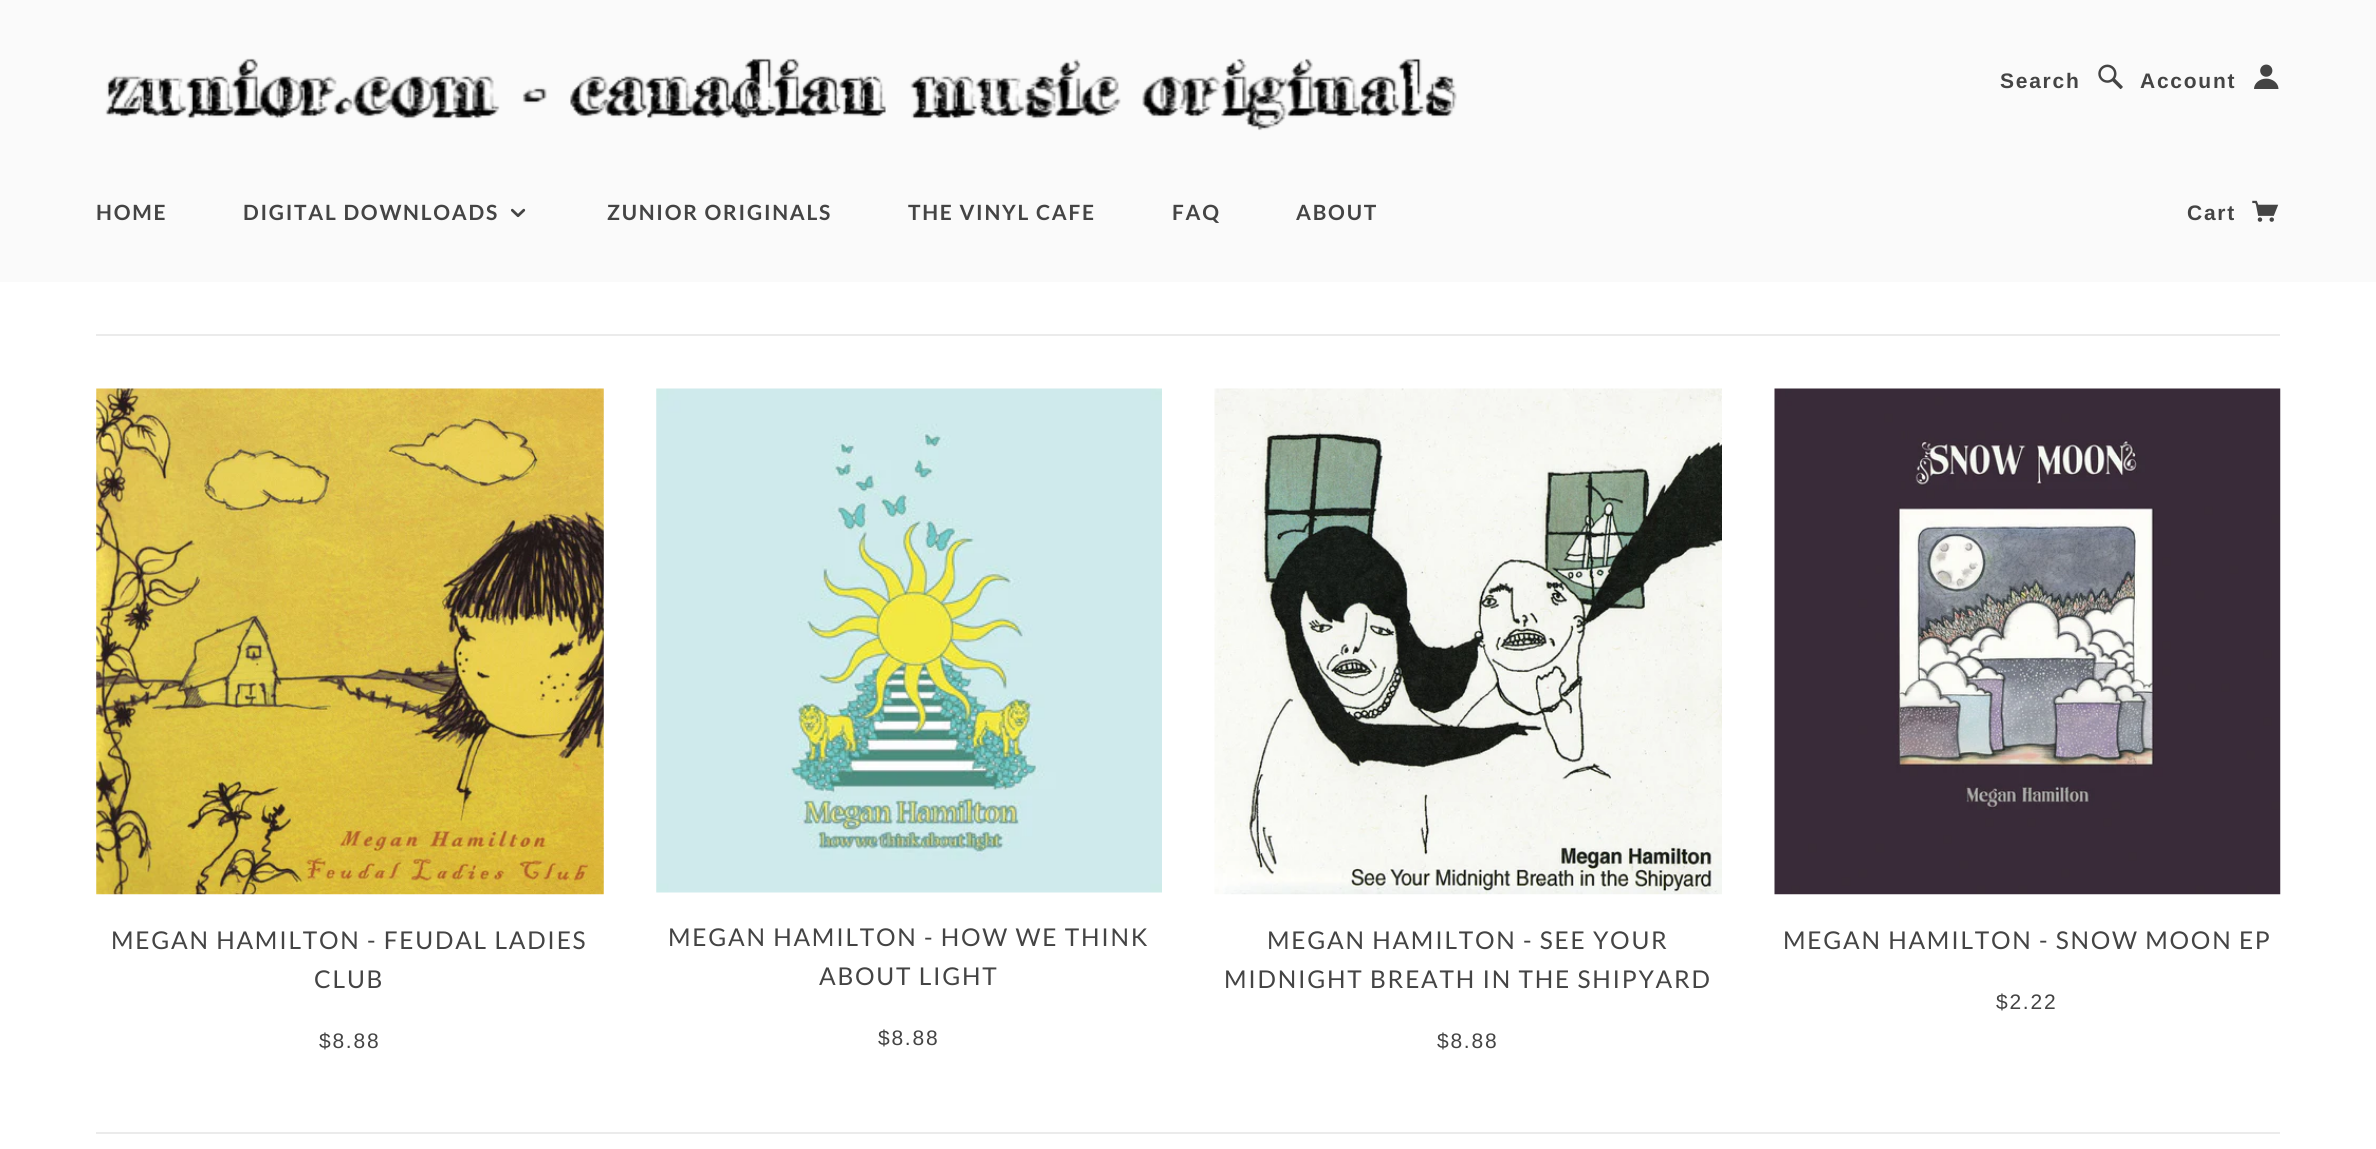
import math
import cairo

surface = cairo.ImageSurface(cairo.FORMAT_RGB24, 2376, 1149)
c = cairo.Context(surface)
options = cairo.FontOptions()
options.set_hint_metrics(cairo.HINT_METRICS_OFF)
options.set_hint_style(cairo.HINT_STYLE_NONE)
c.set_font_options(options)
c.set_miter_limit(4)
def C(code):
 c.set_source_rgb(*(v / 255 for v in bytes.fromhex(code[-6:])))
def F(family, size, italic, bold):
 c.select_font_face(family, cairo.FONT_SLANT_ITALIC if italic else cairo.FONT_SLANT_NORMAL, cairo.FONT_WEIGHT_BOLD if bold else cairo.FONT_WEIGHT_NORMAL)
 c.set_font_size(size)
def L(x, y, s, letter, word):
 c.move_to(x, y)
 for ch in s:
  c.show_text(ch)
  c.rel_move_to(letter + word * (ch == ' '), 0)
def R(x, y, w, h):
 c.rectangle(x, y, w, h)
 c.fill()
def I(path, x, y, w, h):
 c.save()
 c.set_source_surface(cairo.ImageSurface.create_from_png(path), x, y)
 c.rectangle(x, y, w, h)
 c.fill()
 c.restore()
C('ffffff')
c.paint()
C('fafafa')
R(0,0,2376,282)
I('1.png',105,58,1352,73)
F('Liberation Sans',21,0,1)
C('444444')
L(2000,88,'Search',1.75,0)
I('2.png',2098,64,25,26)
L(2140,88,'Account',1.75,0)
I('3.png',2254,64,25,25)
F('Lato',21,0,1)
L(96,220,'HOME',1.75,0)
L(243,220,'DIGITAL DOWNLOADS',1.75,0)
I('4.png',511,208,15,10)
L(607,220,'ZUNIOR ORIGINALS',1.75,0)
L(908,220,'THE VINYL CAFE',1.75,0)
L(1172,220,'FAQ',1.75,0)
L(1296,220,'ABOUT',1.75,0)
F('Liberation Sans',21,0,1)
L(2187,220,'Cart',1.75,0)
I('5.png',2252,200,27,22)
C('ebebeb')
R(96,334,2184,2)
I('6.png',96,388,508,507)
F('Lato',24.5,0,0)
C('444444')
L(111,949,'MEGAN HAMILTON - FEUDAL LADIES',1.75,0)
L(314,988,'CLUB',1.75,0)
F('Liberation Sans',21,0,0)
L(319,1048,'$8.88',1.75,0)
I('7.png',656,388,506,505)
F('Lato',24.5,0,0)
L(668,946,'MEGAN HAMILTON - HOW WE THINK',1.75,0)
L(819,985,'ABOUT LIGHT',1.75,0)
F('Liberation Sans',21,0,0)
L(878,1045,'$8.88',1.75,0)
I('8.png',1214,388,508,507)
F('Lato',24.5,0,0)
L(1267,949,'MEGAN HAMILTON - SEE YOUR',1.75,0)
L(1224,988,'MIDNIGHT BREATH IN THE SHIPYARD',1.75,0)
F('Liberation Sans',21,0,0)
L(1437,1048,'$8.88',1.75,0)
I('9.png',1774,388,507,507)
F('Lato',24.5,0,0)
L(1783,949,'MEGAN HAMILTON - SNOW MOON EP',1.75,0)
F('Liberation Sans',21,0,0)
L(1996,1009,'$2.22',1.75,0)
C('ebebeb')
R(96,1132,2184,2)
surface.write_to_png('o.png')
